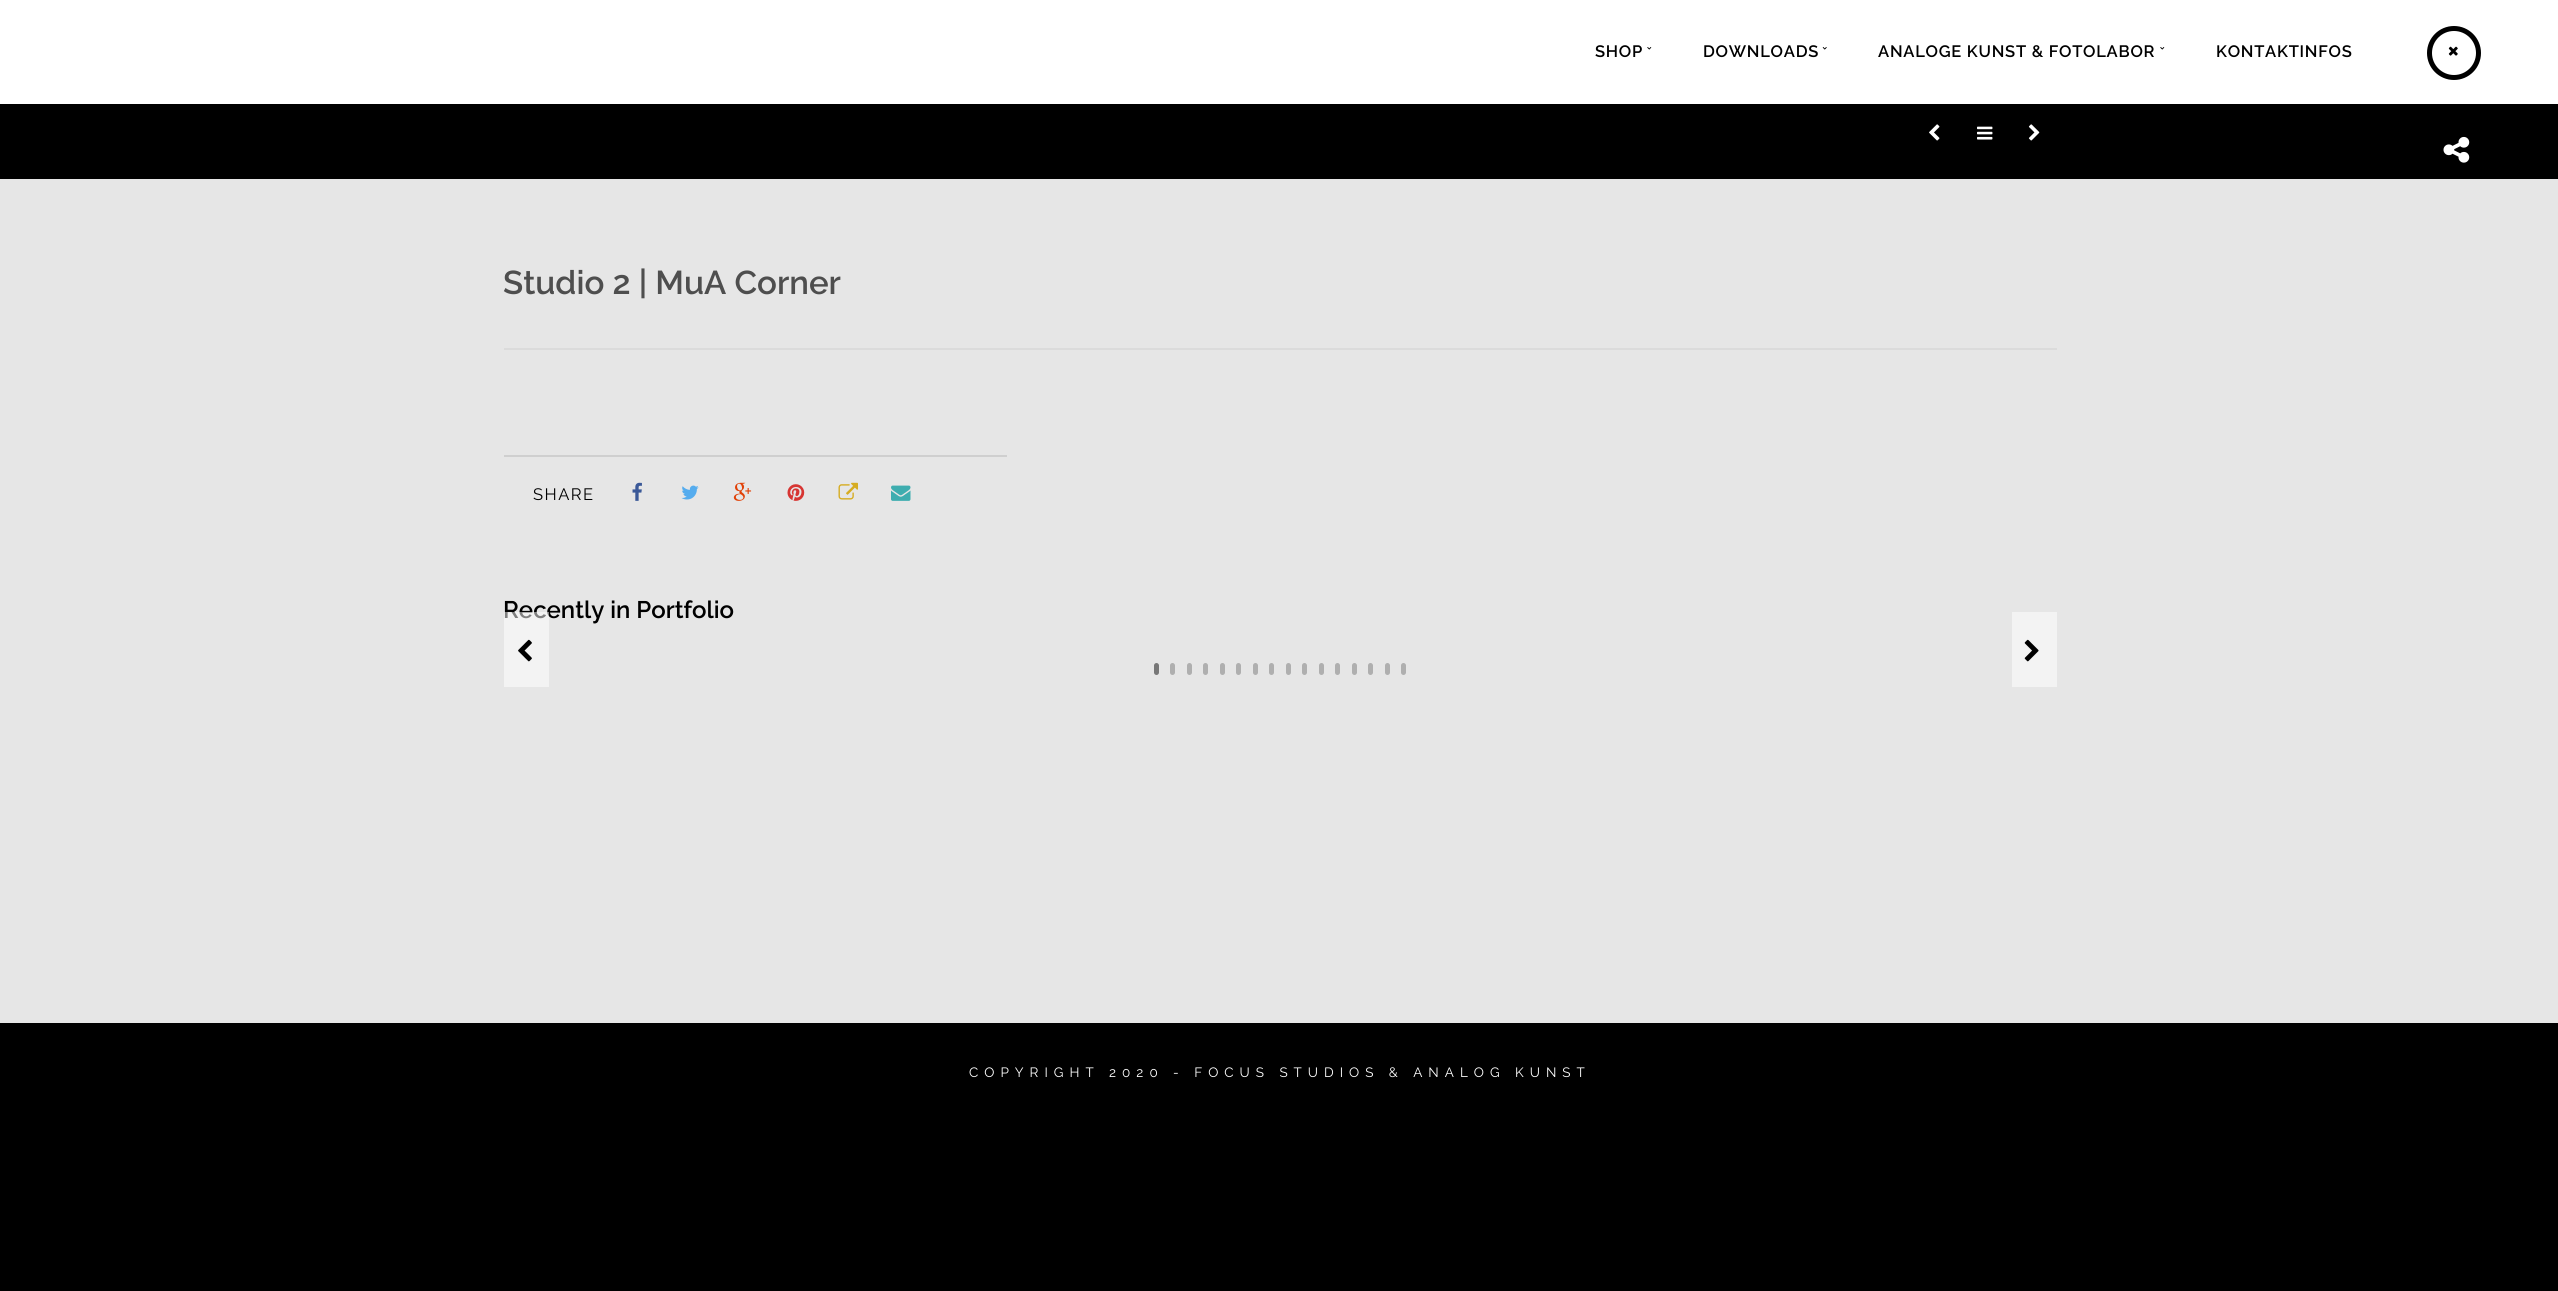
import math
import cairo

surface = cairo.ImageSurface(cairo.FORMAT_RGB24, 2558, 1291)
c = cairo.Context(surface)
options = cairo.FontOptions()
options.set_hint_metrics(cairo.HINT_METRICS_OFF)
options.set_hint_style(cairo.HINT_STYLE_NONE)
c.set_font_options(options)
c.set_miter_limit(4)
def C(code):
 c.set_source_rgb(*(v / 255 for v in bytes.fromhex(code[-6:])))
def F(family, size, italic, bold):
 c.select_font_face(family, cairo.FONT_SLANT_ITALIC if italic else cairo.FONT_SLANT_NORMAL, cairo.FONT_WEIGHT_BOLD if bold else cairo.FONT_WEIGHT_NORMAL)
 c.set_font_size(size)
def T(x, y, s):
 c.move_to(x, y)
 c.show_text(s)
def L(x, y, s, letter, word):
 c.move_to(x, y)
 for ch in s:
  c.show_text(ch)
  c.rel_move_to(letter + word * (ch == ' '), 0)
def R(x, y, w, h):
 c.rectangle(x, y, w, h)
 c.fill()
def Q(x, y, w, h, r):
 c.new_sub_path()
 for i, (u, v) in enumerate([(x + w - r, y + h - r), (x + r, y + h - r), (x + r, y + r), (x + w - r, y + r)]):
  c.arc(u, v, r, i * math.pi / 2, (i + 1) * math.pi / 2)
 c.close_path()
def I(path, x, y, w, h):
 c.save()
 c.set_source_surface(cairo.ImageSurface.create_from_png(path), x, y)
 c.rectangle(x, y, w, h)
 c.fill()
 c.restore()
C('000000')
c.paint()
C('ffffff')
R(0,0,2558,104)
F('Raleway SemiBold',16.5,0,0)
C('000000')
L(1595,57,'SHOP',.75,0)
I('1.png',1647,47,5,3)
L(1703,57,'DOWNLOADS',.75,0)
I('2.png',1822,47,5,3)
L(1878,57,'ANALOGE KUNST & FOTOLABOR',.75,0)
I('1.png',2160,47,5,3)
L(2216,57,'KONTAKTINFOS',.75,0)
c.new_path()
c.arc(2454,53,24.5,0,2 * math.pi)
c.set_line_width(5)
c.stroke()
I('3.png',2448,46,10,10)
I('4.png',2443,136,27,27)
C('e6e6e6')
R(0,179,2558,844)
I('5.png',1929,124,11,17)
I('6.png',1977,126,16,14)
I('7.png',2028,124,12,17)
C('dbdbdb')
R(504,348,1553,2)
F('Raleway SemiBold',33,0,0)
C('4e4e4e')
T(503,294,'Studio 2 | MuA Corner')
C('cfcfcf')
R(504,455,503,2)
F('Raleway',16.5,0,0)
C('000000')
L(533,500,'SHARE',1.5,0)
I('8.png',632,482,10,19)
I('9.png',681,485,18,15)
I('10.png',733,482,19,19)
I('11.png',787,484,18,17)
I('12.png',838,482,20,18)
I('13.png',891,485,20,16)
F('Raleway SemiBold',24,0,0)
T(503,618,'Recently in Portfolio')
c.set_source_rgba(1,1,1,0.5)
R(504,612,45,75)
I('14.png',518,639,14,23)
C('f3f3f3')
R(2012,612,45,75)
I('15.png',2024,639,15,23)
C('777777')
Q(1154,663,5,12,2.5)
c.fill()
C('afafaf')
Q(1170,663,5,12,2.5)
c.fill()
Q(1187,663,5,12,2.5)
c.fill()
Q(1203,663,5,12,2.5)
c.fill()
Q(1220,663,5,12,2.5)
c.fill()
Q(1236,663,5,12,2.5)
c.fill()
Q(1253,663,5,12,2.5)
c.fill()
Q(1269,663,5,12,2.5)
c.fill()
Q(1286,663,5,12,2.5)
c.fill()
Q(1302,663,5,12,2.5)
c.fill()
Q(1319,663,5,12,2.5)
c.fill()
Q(1335,663,5,12,2.5)
c.fill()
Q(1352,663,5,12,2.5)
c.fill()
Q(1368,663,5,12,2.5)
c.fill()
Q(1385,663,5,12,2.5)
c.fill()
Q(1401,663,5,12,2.5)
c.fill()
F('Raleway',13.5,0,0)
C('ffffff')
L(969,1077,'COPYRIGHT 2020 - FOCUS STUDIOS & ANALOG KUNST',6,0)
surface.write_to_png('o.png')
